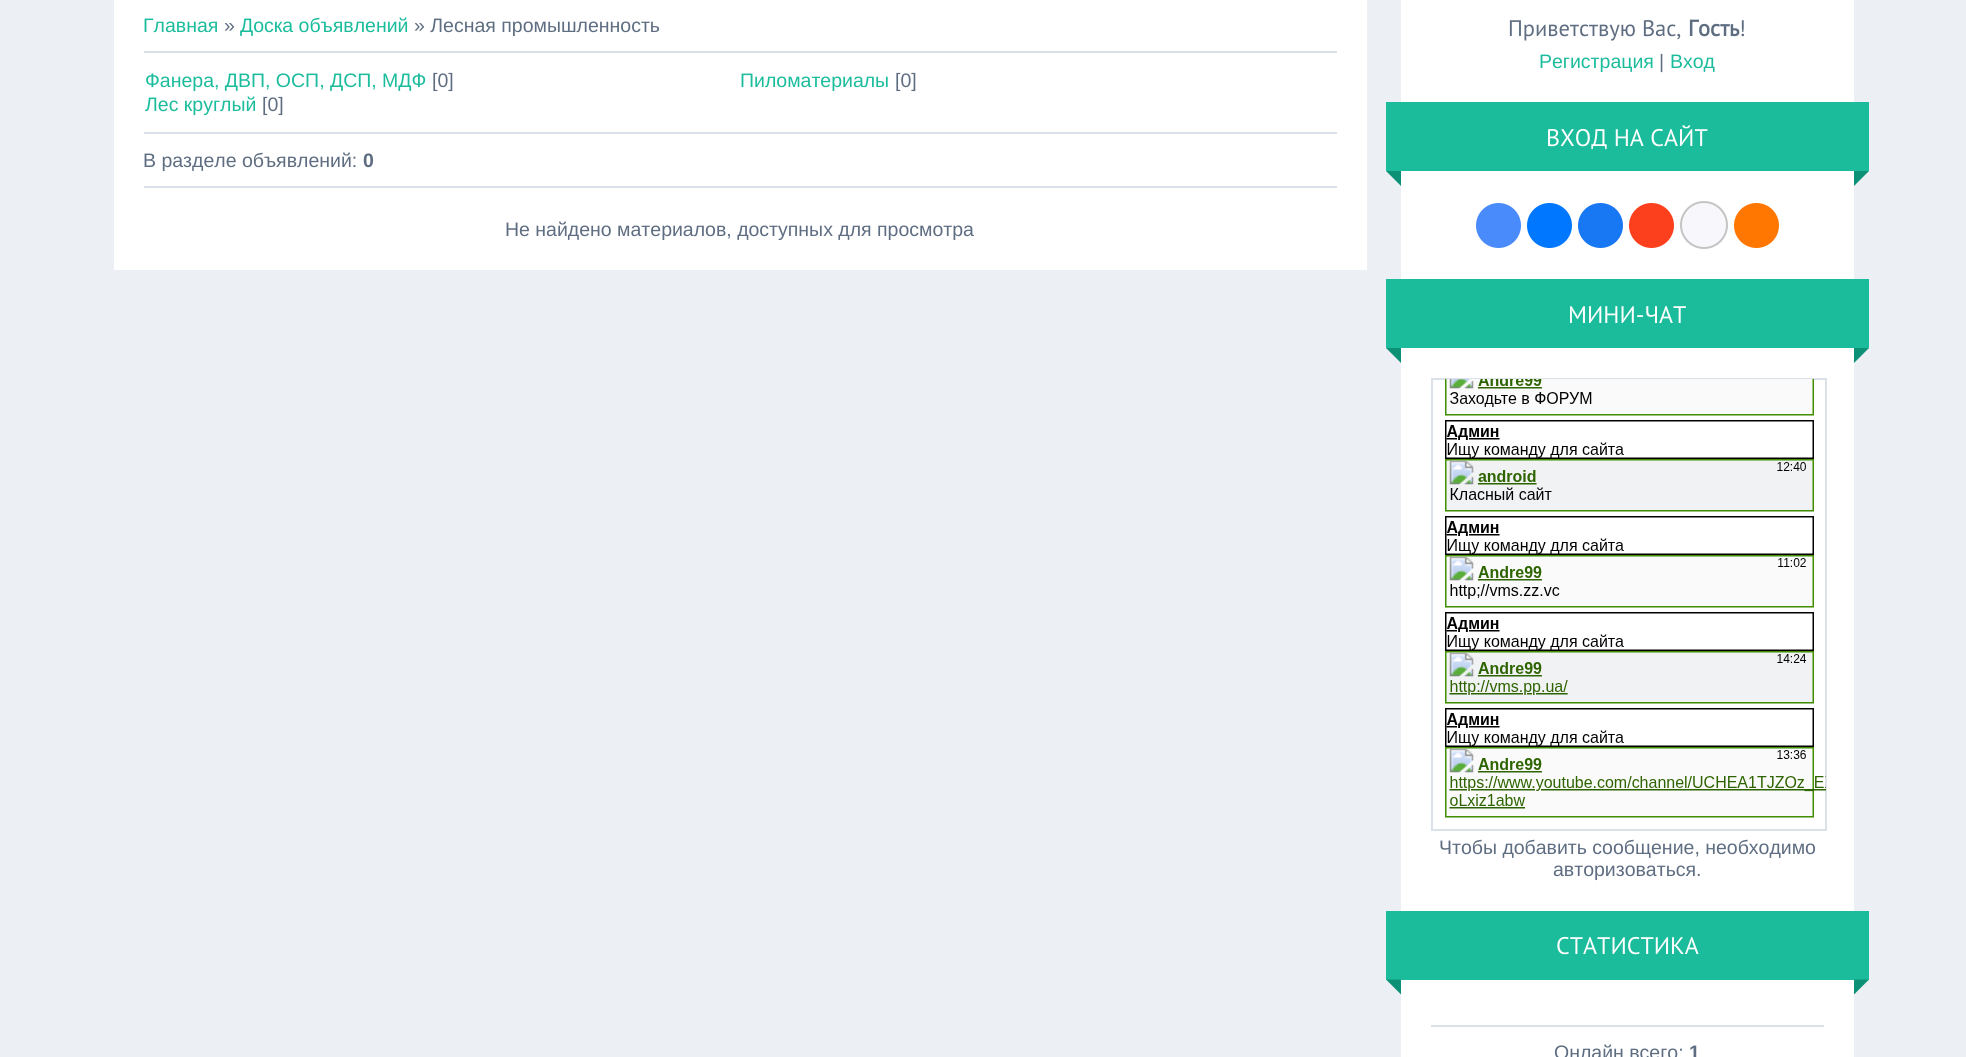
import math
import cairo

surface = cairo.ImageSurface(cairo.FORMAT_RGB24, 1966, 1057)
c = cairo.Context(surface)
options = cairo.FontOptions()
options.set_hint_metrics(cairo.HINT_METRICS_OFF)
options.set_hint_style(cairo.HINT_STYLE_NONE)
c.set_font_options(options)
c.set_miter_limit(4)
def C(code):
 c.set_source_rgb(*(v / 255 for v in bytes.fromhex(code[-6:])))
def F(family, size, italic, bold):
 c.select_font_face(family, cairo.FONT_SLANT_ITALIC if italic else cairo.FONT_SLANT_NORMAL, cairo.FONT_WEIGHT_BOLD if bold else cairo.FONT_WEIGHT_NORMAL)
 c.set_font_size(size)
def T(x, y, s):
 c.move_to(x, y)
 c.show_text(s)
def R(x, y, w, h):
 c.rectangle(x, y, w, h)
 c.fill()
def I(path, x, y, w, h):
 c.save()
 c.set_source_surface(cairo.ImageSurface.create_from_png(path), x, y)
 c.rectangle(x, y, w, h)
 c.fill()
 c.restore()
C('eceff3')
c.paint()
C('ffffff')
R(114,0,1253,270)
F('Liberation Sans',19.5,0,0)
C('1abc9c')
T(143,32,'Главная')
C('5e6d81')
T(224,32,'»')
C('1abc9c')
T(240,32,'Доска объявлений')
C('5e6d81')
T(414,32,'» Лесная промышленность')
C('dbe1e8')
R(144,51,1193,2)
C('1abc9c')
T(145,87,'Фанера, ДВП, ОСП, ДСП, МДФ')
C('5e6d81')
T(432,87,'[0]')
C('1abc9c')
T(740,87,'Пиломатериалы')
C('5e6d81')
T(895,87,'[0]')
C('1abc9c')
T(145,111,'Лес круглый')
C('5e6d81')
T(262,111,'[0]')
C('dbe1e8')
R(144,132,1193,2)
C('5e6d81')
T(143,167,'В разделе объявлений:')
F('Liberation Sans',19.5,0,1)
T(363,167,'0')
C('dbe1e8')
R(144,186,1193,2)
F('Liberation Sans',19.5,0,0)
C('5e6d81')
T(505,236,'Не найдено материалов, доступных для просмотра')
C('ffffff')
R(1401,0,453,1057)
F('PT Sans',22.5,0,0)
C('5e6d81')
T(1508,36,'Приветствую Вас,')
F('PT Sans',22.5,0,1)
T(1688,36,'Гость')
F('PT Sans',22.5,0,0)
T(1739,36,'!')
F('Liberation Sans',19.5,0,0)
C('1abc9c')
T(1539,68,'Регистрация')
C('5e6d81')
T(1659,68,'|')
C('1abc9c')
T(1670,68,'Вход')
R(1386,102,483,69)
F('PT Sans',24,0,0)
C('ffffff')
T(1546,146,'ВХОД НА САЙТ')
C('0c9076')
c.new_path()
c.move_to(1386,171)
c.line_to(1401,171)
c.line_to(1401,186)
c.close_path()
c.fill()
c.new_path()
c.move_to(1854,171)
c.line_to(1869,171)
c.line_to(1854,186)
c.close_path()
c.fill()
C('498bfa')
c.arc(1498.5,225.5,22.5,0,2 * math.pi)
c.fill()
C('0077ff')
c.arc(1549.5,225.5,22.5,0,2 * math.pi)
c.fill()
C('1877f2')
c.arc(1600.5,225.5,22.5,0,2 * math.pi)
c.fill()
C('fc3f1d')
c.arc(1651.5,225.5,22.5,0,2 * math.pi)
c.fill()
C('f8f8fc')
c.arc(1704,225,23,0,2 * math.pi)
c.fill_preserve()
C('c4c4c4')
c.stroke()
C('ff7700')
c.arc(1756.5,225.5,22.5,0,2 * math.pi)
c.fill()
C('1abc9c')
R(1386,279,483,69)
C('ffffff')
T(1568,323,'МИНИ-ЧАТ')
C('0c9076')
c.new_path()
c.move_to(1386,348)
c.line_to(1401,348)
c.line_to(1401,363)
c.close_path()
c.fill()
c.new_path()
c.move_to(1854,348)
c.line_to(1869,348)
c.line_to(1854,363)
c.close_path()
c.fill()
c.rectangle(1432,379,394,451)
C('dbe1e8')
c.stroke()
I('1.png',1445,379,381,439)
F('Liberation Sans',19.5,0,0)
C('5e6d81')
T(1439,854,'Чтобы добавить сообщение, необходимо')
T(1553,876,'авторизоваться.')
C('1abc9c')
R(1386,911,483,69)
F('PT Sans',24,0,0)
C('ffffff')
T(1556,954,'СТАТИСТИКА')
C('0c9076')
c.new_path()
c.move_to(1386,979.5)
c.line_to(1401,979.5)
c.line_to(1401,994.5)
c.close_path()
c.fill()
c.new_path()
c.move_to(1854,979.5)
c.line_to(1869,979.5)
c.line_to(1854,994.5)
c.close_path()
c.fill()
C('dbe1e8')
R(1431,1025,393,2)
F('Liberation Sans',19.5,0,0)
C('5e6d81')
T(1554,1059,'Онлайн всего:')
F('Liberation Sans',19.5,0,1)
T(1689,1059,'1')
surface.write_to_png('o.png')
